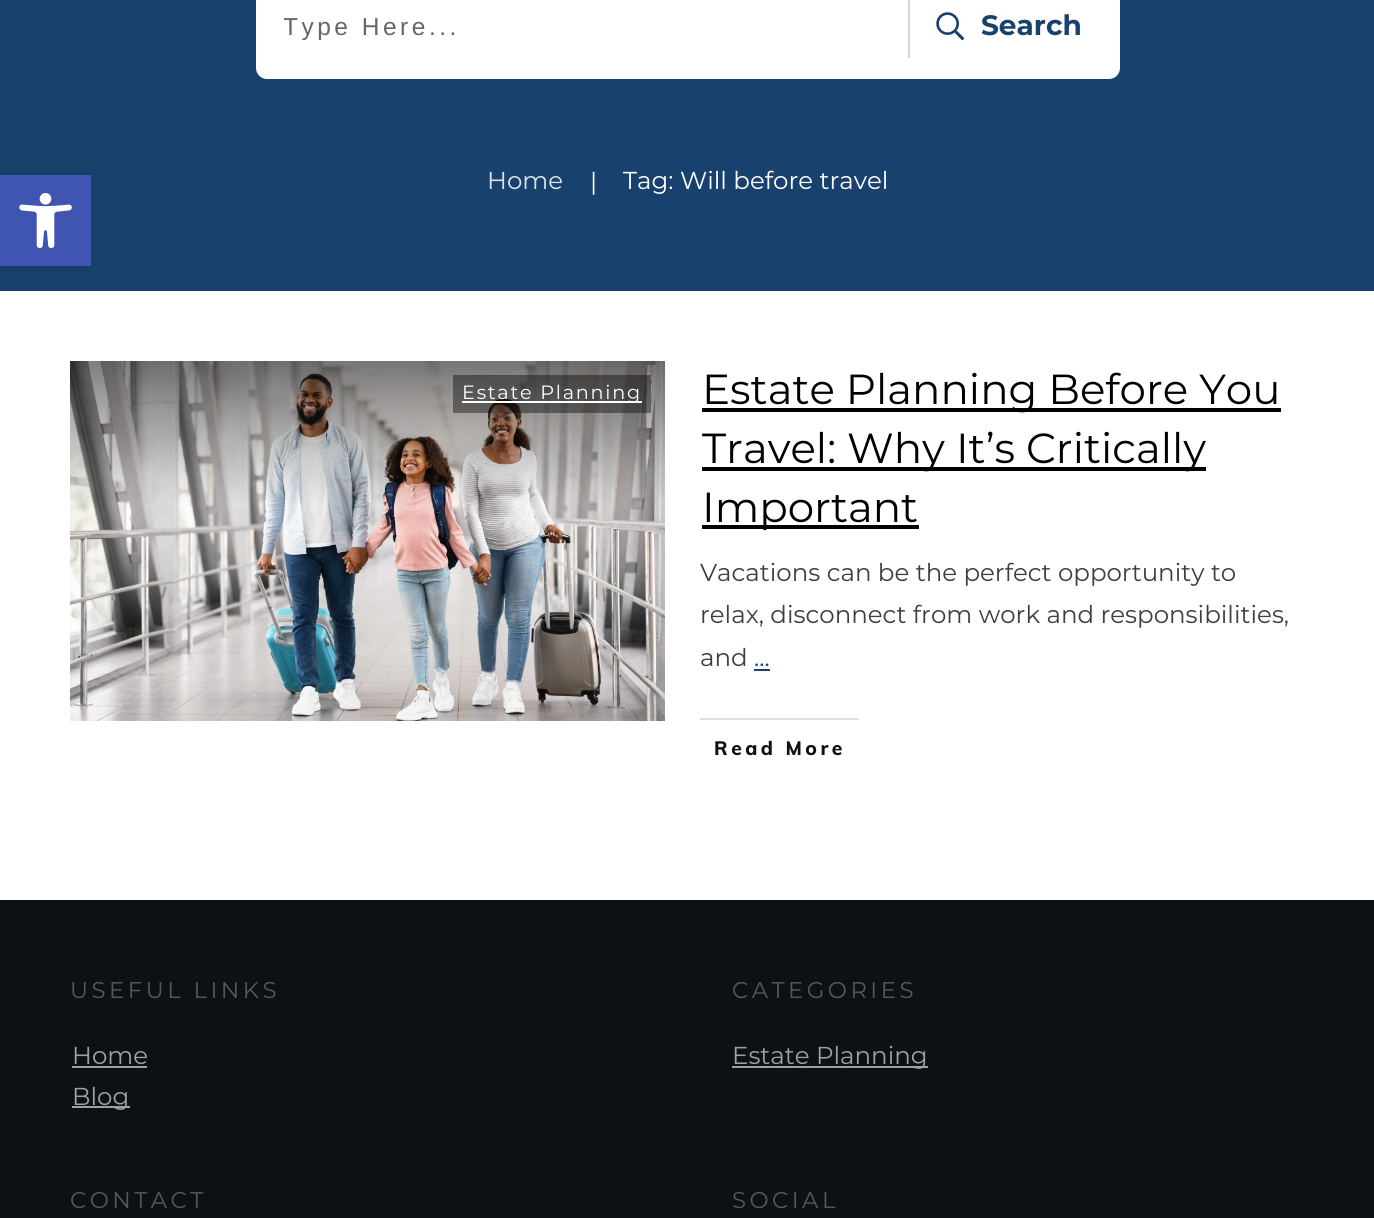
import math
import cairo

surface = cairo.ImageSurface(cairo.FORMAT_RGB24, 1374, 1218)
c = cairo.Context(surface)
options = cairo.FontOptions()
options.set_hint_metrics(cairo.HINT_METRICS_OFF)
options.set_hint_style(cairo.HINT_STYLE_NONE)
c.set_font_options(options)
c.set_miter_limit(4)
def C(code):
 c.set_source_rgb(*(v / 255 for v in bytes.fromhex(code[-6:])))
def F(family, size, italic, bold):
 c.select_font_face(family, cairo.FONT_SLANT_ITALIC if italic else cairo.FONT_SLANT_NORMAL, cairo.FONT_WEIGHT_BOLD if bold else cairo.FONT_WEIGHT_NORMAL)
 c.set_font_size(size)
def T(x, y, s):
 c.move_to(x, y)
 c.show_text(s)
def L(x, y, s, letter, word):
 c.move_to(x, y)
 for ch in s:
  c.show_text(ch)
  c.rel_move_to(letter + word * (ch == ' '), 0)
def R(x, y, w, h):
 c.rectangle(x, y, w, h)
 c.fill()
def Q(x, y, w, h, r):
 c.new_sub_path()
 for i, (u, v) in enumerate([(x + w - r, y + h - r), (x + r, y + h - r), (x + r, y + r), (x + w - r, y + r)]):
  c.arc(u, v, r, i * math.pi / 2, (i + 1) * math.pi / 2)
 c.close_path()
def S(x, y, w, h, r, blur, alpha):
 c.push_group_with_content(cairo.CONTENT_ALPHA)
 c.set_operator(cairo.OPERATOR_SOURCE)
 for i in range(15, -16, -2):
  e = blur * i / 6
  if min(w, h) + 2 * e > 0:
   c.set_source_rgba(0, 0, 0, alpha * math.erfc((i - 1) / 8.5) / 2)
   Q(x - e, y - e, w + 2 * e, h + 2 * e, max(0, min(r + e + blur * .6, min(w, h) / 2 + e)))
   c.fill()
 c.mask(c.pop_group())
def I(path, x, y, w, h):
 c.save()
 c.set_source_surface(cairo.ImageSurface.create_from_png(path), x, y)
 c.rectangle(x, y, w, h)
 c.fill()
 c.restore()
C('ffffff')
c.paint()
C('18426d')
R(0,0,1374,291)
C('000000')
S(0,175,91,91,0,9,.1)
C('4054b2')
R(0,175,91,91)
I('1.png',19,193,53,56)
C('ffffff')
Q(256,-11,864,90,11)
c.fill()
c.save()
c.rectangle(284,12,610,28)
c.clip()
F('Liberation Sans',24.5,0,0)
C('666666')
L(283,35,'Type Here...',3.5,0)
c.restore()
C('d6d6d6')
R(908,0,2,58)
I('2.png',936,12,28,28)
F('Montserrat',28,0,1)
C('18426d')
T(981,35,'Search')
F('Montserrat',24.5,0,0)
C('dce3e9')
T(487,189,'Home')
C('ffffff')
T(590,190,'|')
T(623,189,'Tag: Will before travel')
I('3.png',70,361,595,360)
c.set_source_rgba(0,0,0,0.4)
R(453,375,198,38)
C('ffffff')
R(462,401,180,2)
F('Montserrat',19.25,0,0)
L(462,399,'Estate Planning',1.75,0)
C('000000')
R(702,408,579,4)
F('Montserrat',42,0,0)
T(702,404,'Estate Planning Before You')
R(702,467,504,4)
T(702,463,'Travel: Why It’s Critically')
R(702,525,217,4)
T(702,522,'Important')
F('Montserrat',24.5,0,0)
C('3e3e3e')
T(700,581,'Vacations can be the perfect opportunity to')
T(700,623,'relax, disconnect from work and responsibilities,')
T(700,666,'and')
C('18426d')
T(754,666,'...')
R(754,669,16,2)
C('e0e0e0')
R(700,718,159,2)
F('Muli ExtraBold',19.25,0,0)
C('0c1115')
L(714,755,'Read More',3.5,0)
R(0,900,1374,318)
F('Montserrat',22.75,0,0)
C('55585b')
L(70,998,'USEFUL LINKS',3.5,0)
F('Montserrat',24.5,0,0)
C('9ea0a1')
T(72,1064,'Home')
R(72,1066,75,2)
R(72,1106,58,2)
T(72,1105,'Blog')
F('Montserrat',22.75,0,0)
C('55585b')
L(732,998,'CATEGORIES',3.5,0)
C('9ea0a1')
R(732,1066,196,2)
F('Montserrat',24.5,0,0)
T(732,1064,'Estate Planning')
F('Montserrat',22.75,0,0)
C('55585b')
L(70,1208,'CONTACT',3.5,0)
L(732,1208,'SOCIAL',3.5,0)
surface.write_to_png('o.png')
